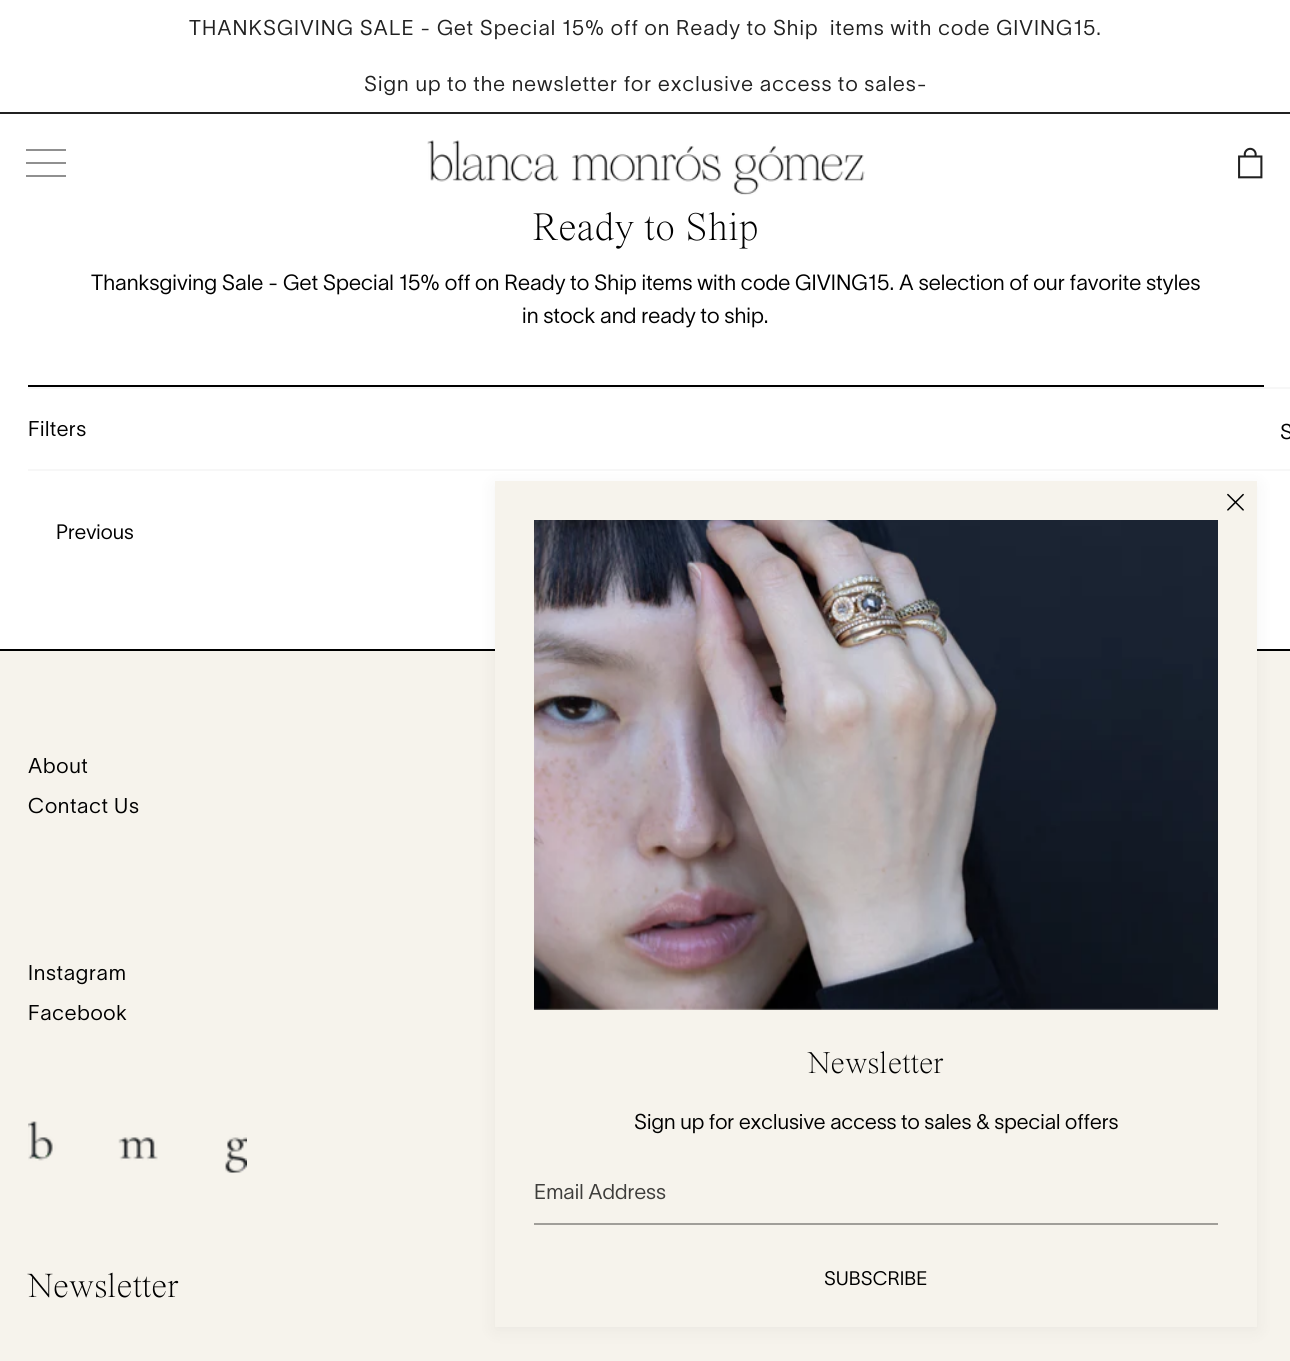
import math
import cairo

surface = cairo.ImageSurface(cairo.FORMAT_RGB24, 1290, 1361)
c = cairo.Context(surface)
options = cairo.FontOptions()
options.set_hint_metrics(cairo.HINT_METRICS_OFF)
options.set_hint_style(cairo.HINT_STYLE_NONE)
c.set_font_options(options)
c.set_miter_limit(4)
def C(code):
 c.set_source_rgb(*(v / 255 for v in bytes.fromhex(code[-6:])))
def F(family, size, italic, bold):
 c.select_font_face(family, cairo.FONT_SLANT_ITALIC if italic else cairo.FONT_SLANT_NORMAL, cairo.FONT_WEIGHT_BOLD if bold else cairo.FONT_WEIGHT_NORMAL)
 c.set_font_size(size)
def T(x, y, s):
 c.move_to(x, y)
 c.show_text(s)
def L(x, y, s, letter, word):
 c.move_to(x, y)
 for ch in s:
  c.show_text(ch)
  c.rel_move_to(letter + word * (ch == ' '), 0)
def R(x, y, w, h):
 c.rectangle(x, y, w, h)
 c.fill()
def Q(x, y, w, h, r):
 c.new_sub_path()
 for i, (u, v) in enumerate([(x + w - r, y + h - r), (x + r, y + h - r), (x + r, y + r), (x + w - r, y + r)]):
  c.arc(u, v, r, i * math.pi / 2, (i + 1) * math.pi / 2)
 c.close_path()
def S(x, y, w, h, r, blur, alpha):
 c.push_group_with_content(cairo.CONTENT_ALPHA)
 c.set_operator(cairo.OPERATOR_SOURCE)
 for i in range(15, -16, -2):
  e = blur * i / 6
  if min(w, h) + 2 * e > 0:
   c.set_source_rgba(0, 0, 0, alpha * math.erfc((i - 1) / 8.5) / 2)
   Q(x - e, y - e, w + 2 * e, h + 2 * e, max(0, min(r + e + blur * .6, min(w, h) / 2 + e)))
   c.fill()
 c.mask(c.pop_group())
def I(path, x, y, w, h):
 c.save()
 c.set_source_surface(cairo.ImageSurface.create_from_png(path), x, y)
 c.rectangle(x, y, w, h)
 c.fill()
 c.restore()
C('ffffff')
c.paint()
C('212121')
R(0,112,1290,2)
F('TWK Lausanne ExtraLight',21,0,0)
L(189,35,'THANKSGIVING SALE - Get Special 15% off on Ready to Ship  items with code GIVING15.',1.05,0)
L(364,91,'Sign up to the newsletter for exclusive access to sales-',1.05,0)
c.new_path()
c.move_to(26,150)
c.line_to(66,150)
c.move_to(26,163)
c.line_to(66,163)
c.move_to(26,176)
c.line_to(66,176)
c.set_line_width(1)
c.stroke()
I('1.png',427,140,438,55)
I('2.png',1238,147,25,32)
F('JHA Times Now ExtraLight',40.25,0,0)
C('000000')
T(532,240,'Ready to Ship')
F('TWK Lausanne ExtraLight',21.6,0,0)
T(91,290,'Thanksgiving Sale - Get Special 15% off on Ready to Ship items with code GIVING15. A selection of our favorite styles')
T(522,323,'in stock and ready to ship.')
R(28,385,1236,2)
C('f7f7f7')
R(28,387,1262,2)
R(28,469,1262,2)
F('TWK Lausanne ExtraLight',21,0,0)
C('000000')
L(28,436,'Filters',.5,0)
L(1280,439,'S',.5,0)
F('TWK Lausanne ExtraLight',20.5,0,0)
T(56,539,'Previous')
C('f6f3ec')
R(0,651,1290,710)
C('000000')
R(0,649,1290,2)
C('000000')
S(495,485,762,845,0,9,.05)
C('f6f3ec')
R(495,481,762,846)
I('3.png',1227,493,17,18)
I('4.png',534,520,684,490)
F('JHA Times Now ExtraLight',31.5,0,0)
C('000000')
T(808,1073,'Newsletter')
F('TWK Lausanne ExtraLight',21,0,0)
T(634,1129,'Sign up for exclusive access to sales & special offers')
C('a09e99')
R(534,1223,684,2)
C('3e3d3b')
T(534,1199,'Email Address')
F('TWK Lausanne ExtraLight',19.25,0,0)
C('000000')
T(824,1285,'SUBSCRIBE')
F('TWK Lausanne ExtraLight',21,0,0)
L(28,773,'About',.75,0)
L(28,813,'Contact Us',.75,0)
L(28,980,'Instagram',.75,0)
L(28,1020,'Facebook',.75,0)
I('5.png',28,1121,219,52)
F('JHA Times Now ExtraLight',35,0,0)
T(28,1297,'Newsletter')
surface.write_to_png('o.png')
